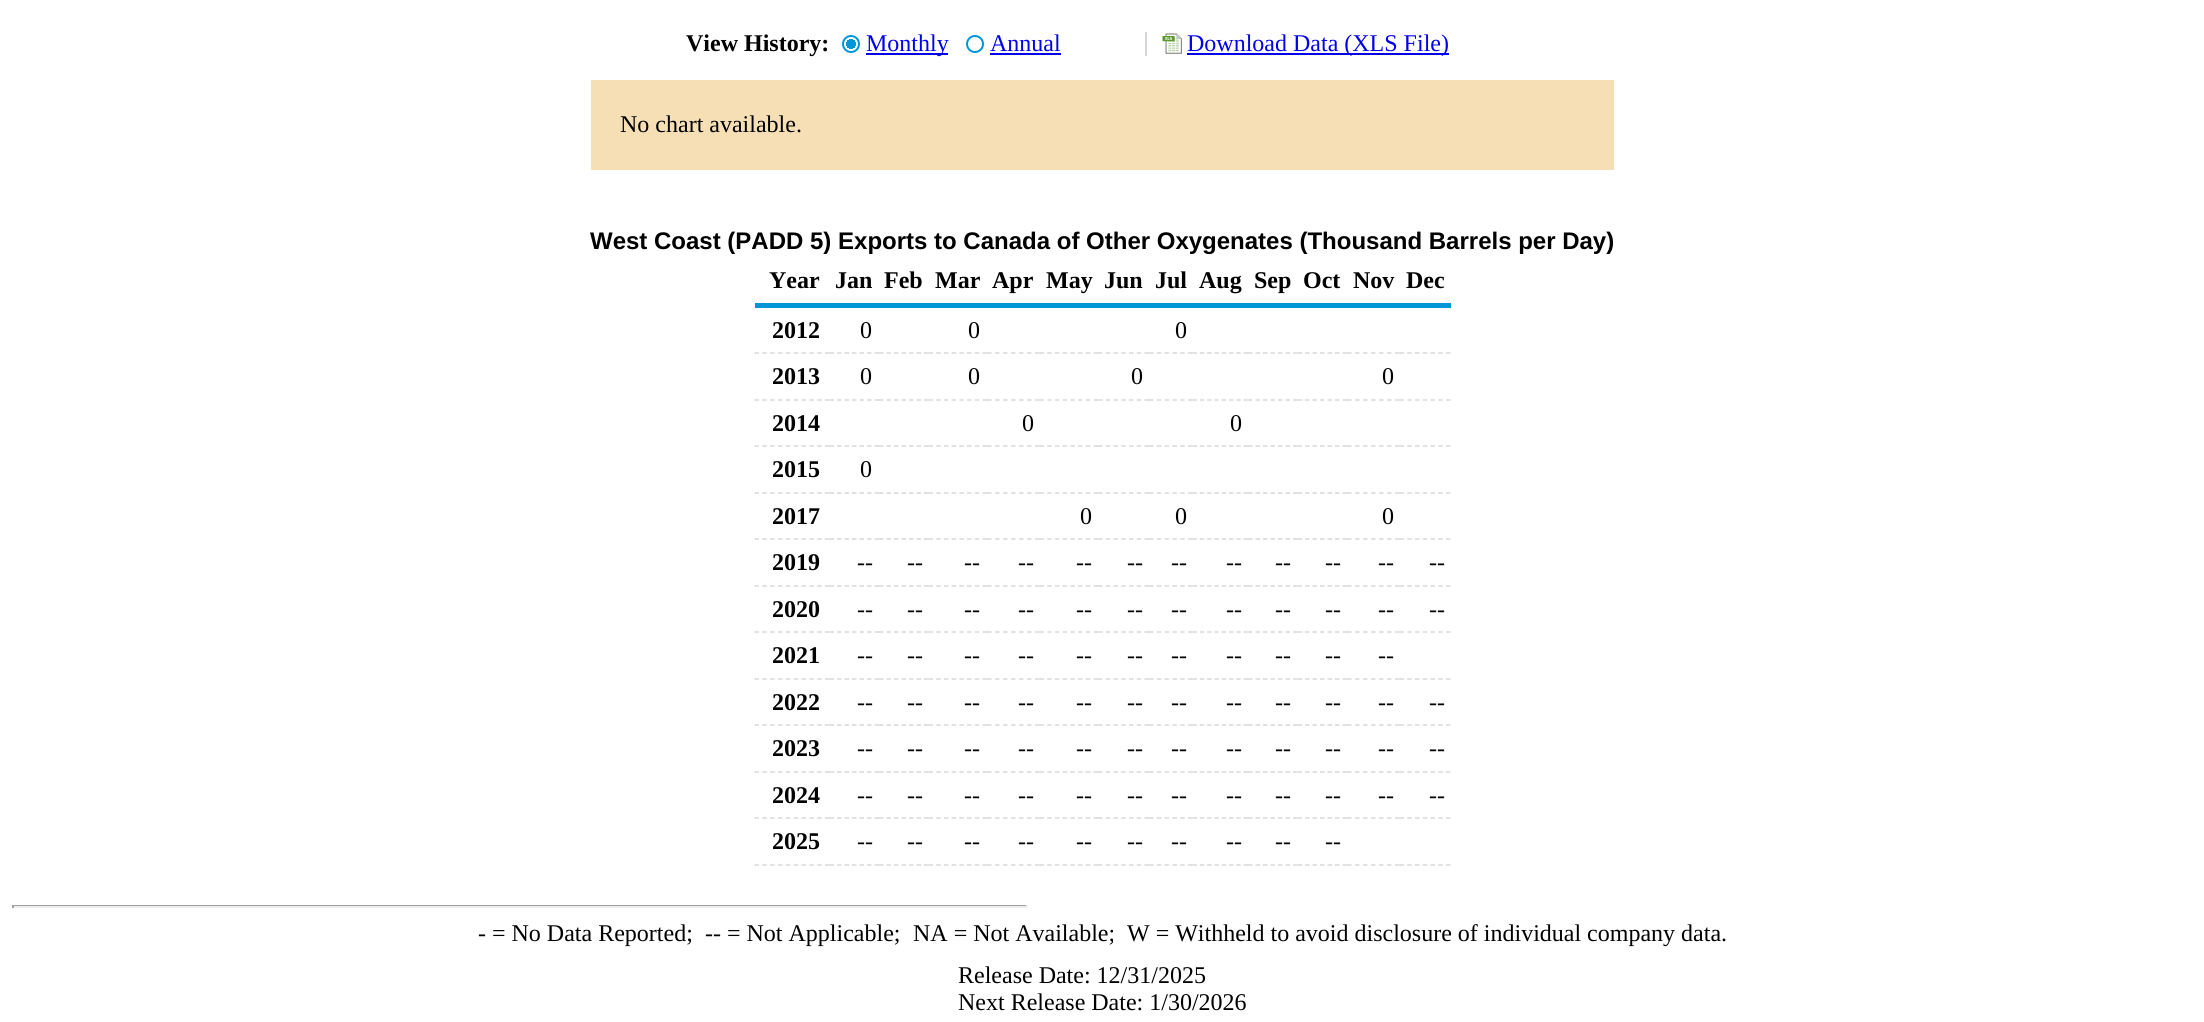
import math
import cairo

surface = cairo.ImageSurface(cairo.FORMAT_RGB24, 2204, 1022)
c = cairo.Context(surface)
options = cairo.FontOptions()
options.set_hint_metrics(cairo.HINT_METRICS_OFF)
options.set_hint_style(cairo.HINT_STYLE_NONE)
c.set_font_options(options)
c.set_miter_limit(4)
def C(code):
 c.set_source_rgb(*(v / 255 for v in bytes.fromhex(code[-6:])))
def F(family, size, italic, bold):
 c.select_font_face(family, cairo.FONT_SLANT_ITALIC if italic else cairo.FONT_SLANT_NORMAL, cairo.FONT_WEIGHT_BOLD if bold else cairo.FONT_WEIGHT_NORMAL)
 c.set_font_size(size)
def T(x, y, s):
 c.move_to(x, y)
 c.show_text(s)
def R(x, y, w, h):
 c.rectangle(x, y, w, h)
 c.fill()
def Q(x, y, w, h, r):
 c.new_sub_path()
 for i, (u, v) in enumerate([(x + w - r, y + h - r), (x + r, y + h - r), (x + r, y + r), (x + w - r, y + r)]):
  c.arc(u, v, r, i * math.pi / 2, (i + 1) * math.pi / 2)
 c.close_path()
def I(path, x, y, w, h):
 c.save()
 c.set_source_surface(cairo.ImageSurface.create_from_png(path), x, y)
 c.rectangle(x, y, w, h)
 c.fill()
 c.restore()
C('ffffff')
c.paint()
F('Liberation Serif',24,0,1)
C('000000')
T(686,51,'View History:')
c.save()
Q(842,35,18,18,9)
c.clip()
gradient = cairo.RadialGradient(851,44,0,851,44,11)
gradient.add_color_stop_rgba(0,0,0.588,0.843,1)
gradient.add_color_stop_rgba(.45,0,0.588,0.843,1)
gradient.add_color_stop_rgba(.45,1,1,1,1)
c.set_source(gradient)
R(843,36,15,15)
c.restore()
c.arc(851,44,8,0,2 * math.pi)
C('0096d7')
c.stroke()
C('0000ee')
R(866,53,82,2)
F('Liberation Serif',24,0,0)
T(866,51,'Monthly')
c.new_path()
c.arc(975,44,8,0,2 * math.pi)
C('0096d7')
c.stroke()
C('0000ee')
T(990,51,'Annual')
R(990,53,71,2)
C('d7d7d7')
R(1145,32,2,24)
I('1.png',1162,33,20,21)
C('0000ee')
R(1187,53,262,2)
T(1187,51,'Download Data (XLS File)')
C('f6dfb4')
R(591,80,1023,90)
C('000000')
T(620,132,'No chart available.')
F('Liberation Sans',24,0,1)
T(590,249,'West Coast (PADD 5) Exports to Canada of Other Oxygenates (Thousand Barrels per Day)')
C('0096d7')
R(755,303,696,5)
F('Liberation Serif',24,0,1)
C('000000')
T(769,288,'Year')
T(835,288,'Jan')
T(884,288,'Feb')
T(935,288,'Mar')
T(992,288,'Apr')
T(1046,288,'May')
T(1104,288,'Jun')
T(1155,288,'Jul')
T(1199,288,'Aug')
T(1254,288,'Sep')
T(1303,288,'Oct')
T(1353,288,'Nov')
T(1406,288,'Dec')
c.new_path()
c.move_to(754.5,353)
c.line_to(829.5,353)
C('d8d8d8')
c.set_line_width(1.5)
c.set_dash([4.5,3.33])
c.stroke()
C('000000')
T(772,338,'2012')
c.new_path()
c.move_to(829.5,353)
c.line_to(879,353)
C('d8d8d8')
c.set_dash([4.5,3])
c.stroke()
F('Liberation Serif',24,0,0)
C('000000')
T(860,338,'0')
c.new_path()
c.move_to(879,353)
c.line_to(928.5,353)
C('d8d8d8')
c.stroke()
c.new_path()
c.move_to(928.5,353)
c.line_to(987,353)
c.set_dash([4.5,3.21])
c.stroke()
C('000000')
T(968,338,'0')
c.new_path()
c.move_to(1149,353)
c.line_to(1192.5,353)
C('d8d8d8')
c.set_dash([4.5,3.3])
c.stroke()
C('000000')
T(1175,338,'0')
c.new_path()
c.move_to(987,353)
c.line_to(1039.5,353)
C('d8d8d8')
c.set_dash([4.5,3.5])
c.stroke()
c.new_path()
c.move_to(1039.5,353)
c.line_to(1098,353)
c.set_dash([4.5,3.21])
c.stroke()
c.new_path()
c.move_to(1098,353)
c.line_to(1149,353)
c.set_dash([4.5,3.25])
c.stroke()
c.new_path()
c.move_to(1192.5,353)
c.line_to(1248,353)
c.set_dash([4.5,2.79])
c.stroke()
c.new_path()
c.move_to(1248,353)
c.line_to(1297.5,353)
c.set_dash([4.5,3])
c.stroke()
c.new_path()
c.move_to(1297.5,353)
c.line_to(1347,353)
c.stroke()
c.new_path()
c.move_to(1347,353)
c.line_to(1399.5,353)
c.set_dash([4.5,3.5])
c.stroke()
c.new_path()
c.move_to(1399.5,353)
c.line_to(1450.5,353)
c.set_dash([4.5,3.25])
c.stroke()
c.new_path()
c.move_to(754.5,400)
c.line_to(829.5,400)
c.set_dash([4.5,3.33])
c.stroke()
F('Liberation Serif',24,0,1)
C('000000')
T(772,384,'2013')
c.new_path()
c.move_to(829.5,400)
c.line_to(879,400)
C('d8d8d8')
c.set_dash([4.5,3])
c.stroke()
F('Liberation Serif',24,0,0)
C('000000')
T(860,384,'0')
c.new_path()
c.move_to(879,400)
c.line_to(928.5,400)
C('d8d8d8')
c.stroke()
c.new_path()
c.move_to(928.5,400)
c.line_to(987,400)
c.set_dash([4.5,3.21])
c.stroke()
C('000000')
T(968,384,'0')
c.new_path()
c.move_to(1098,400)
c.line_to(1149,400)
C('d8d8d8')
c.set_dash([4.5,3.25])
c.stroke()
C('000000')
T(1131,384,'0')
c.new_path()
c.move_to(1347,400)
c.line_to(1399.5,400)
C('d8d8d8')
c.set_dash([4.5,3.5])
c.stroke()
C('000000')
T(1382,384,'0')
c.new_path()
c.move_to(987,400)
c.line_to(1039.5,400)
C('d8d8d8')
c.stroke()
c.new_path()
c.move_to(1039.5,400)
c.line_to(1098,400)
c.set_dash([4.5,3.21])
c.stroke()
c.new_path()
c.move_to(1149,400)
c.line_to(1192.5,400)
c.set_dash([4.5,3.3])
c.stroke()
c.new_path()
c.move_to(1192.5,400)
c.line_to(1248,400)
c.set_dash([4.5,2.79])
c.stroke()
c.new_path()
c.move_to(1248,400)
c.line_to(1297.5,400)
c.set_dash([4.5,3])
c.stroke()
c.new_path()
c.move_to(1297.5,400)
c.line_to(1347,400)
c.stroke()
c.new_path()
c.move_to(1399.5,400)
c.line_to(1450.5,400)
c.set_dash([4.5,3.25])
c.stroke()
c.new_path()
c.move_to(754.5,446)
c.line_to(829.5,446)
c.set_dash([4.5,3.33])
c.stroke()
F('Liberation Serif',24,0,1)
C('000000')
T(772,431,'2014')
c.new_path()
c.move_to(987,446)
c.line_to(1039.5,446)
C('d8d8d8')
c.set_dash([4.5,3.5])
c.stroke()
F('Liberation Serif',24,0,0)
C('000000')
T(1022,431,'0')
c.new_path()
c.move_to(1149,446)
c.line_to(1192.5,446)
C('d8d8d8')
c.set_dash([4.5,3.3])
c.stroke()
c.new_path()
c.move_to(1192.5,446)
c.line_to(1248,446)
c.set_dash([4.5,2.79])
c.stroke()
C('000000')
T(1230,431,'0')
c.new_path()
c.move_to(829.5,446)
c.line_to(879,446)
C('d8d8d8')
c.set_dash([4.5,3])
c.stroke()
c.new_path()
c.move_to(879,446)
c.line_to(928.5,446)
c.stroke()
c.new_path()
c.move_to(928.5,446)
c.line_to(987,446)
c.set_dash([4.5,3.21])
c.stroke()
c.new_path()
c.move_to(1039.5,446)
c.line_to(1098,446)
c.stroke()
c.new_path()
c.move_to(1098,446)
c.line_to(1149,446)
c.set_dash([4.5,3.25])
c.stroke()
c.new_path()
c.move_to(1248,446)
c.line_to(1297.5,446)
c.set_dash([4.5,3])
c.stroke()
c.new_path()
c.move_to(1297.5,446)
c.line_to(1347,446)
c.stroke()
c.new_path()
c.move_to(1347,446)
c.line_to(1399.5,446)
c.set_dash([4.5,3.5])
c.stroke()
c.new_path()
c.move_to(1399.5,446)
c.line_to(1450.5,446)
c.set_dash([4.5,3.25])
c.stroke()
c.new_path()
c.move_to(754.5,493)
c.line_to(829.5,493)
c.set_dash([4.5,3.33])
c.stroke()
F('Liberation Serif',24,0,1)
C('000000')
T(772,477,'2015')
c.new_path()
c.move_to(829.5,493)
c.line_to(879,493)
C('d8d8d8')
c.set_dash([4.5,3])
c.stroke()
F('Liberation Serif',24,0,0)
C('000000')
T(860,477,'0')
c.new_path()
c.move_to(879,493)
c.line_to(928.5,493)
C('d8d8d8')
c.stroke()
c.new_path()
c.move_to(928.5,493)
c.line_to(987,493)
c.set_dash([4.5,3.21])
c.stroke()
c.new_path()
c.move_to(987,493)
c.line_to(1039.5,493)
c.set_dash([4.5,3.5])
c.stroke()
c.new_path()
c.move_to(1039.5,493)
c.line_to(1098,493)
c.set_dash([4.5,3.21])
c.stroke()
c.new_path()
c.move_to(1098,493)
c.line_to(1149,493)
c.set_dash([4.5,3.25])
c.stroke()
c.new_path()
c.move_to(1149,493)
c.line_to(1192.5,493)
c.set_dash([4.5,3.3])
c.stroke()
c.new_path()
c.move_to(1192.5,493)
c.line_to(1248,493)
c.set_dash([4.5,2.79])
c.stroke()
c.new_path()
c.move_to(1248,493)
c.line_to(1297.5,493)
c.set_dash([4.5,3])
c.stroke()
c.new_path()
c.move_to(1297.5,493)
c.line_to(1347,493)
c.stroke()
c.new_path()
c.move_to(1347,493)
c.line_to(1399.5,493)
c.set_dash([4.5,3.5])
c.stroke()
c.new_path()
c.move_to(1399.5,493)
c.line_to(1450.5,493)
c.set_dash([4.5,3.25])
c.stroke()
c.new_path()
c.move_to(754.5,539)
c.line_to(829.5,539)
c.set_dash([4.5,3.33])
c.stroke()
F('Liberation Serif',24,0,1)
C('000000')
T(772,524,'2017')
c.new_path()
c.move_to(987,539)
c.line_to(1039.5,539)
C('d8d8d8')
c.set_dash([4.5,3.5])
c.stroke()
c.new_path()
c.move_to(1039.5,539)
c.line_to(1098,539)
c.set_dash([4.5,3.21])
c.stroke()
F('Liberation Serif',24,0,0)
C('000000')
T(1080,524,'0')
c.new_path()
c.move_to(1149,539)
c.line_to(1192.5,539)
C('d8d8d8')
c.set_dash([4.5,3.3])
c.stroke()
C('000000')
T(1175,524,'0')
c.new_path()
c.move_to(1347,539)
c.line_to(1399.5,539)
C('d8d8d8')
c.set_dash([4.5,3.5])
c.stroke()
C('000000')
T(1382,524,'0')
c.new_path()
c.move_to(829.5,539)
c.line_to(879,539)
C('d8d8d8')
c.set_dash([4.5,3])
c.stroke()
c.new_path()
c.move_to(879,539)
c.line_to(928.5,539)
c.stroke()
c.new_path()
c.move_to(928.5,539)
c.line_to(987,539)
c.set_dash([4.5,3.21])
c.stroke()
c.new_path()
c.move_to(1098,539)
c.line_to(1149,539)
c.set_dash([4.5,3.25])
c.stroke()
c.new_path()
c.move_to(1192.5,539)
c.line_to(1248,539)
c.set_dash([4.5,2.79])
c.stroke()
c.new_path()
c.move_to(1248,539)
c.line_to(1297.5,539)
c.set_dash([4.5,3])
c.stroke()
c.new_path()
c.move_to(1297.5,539)
c.line_to(1347,539)
c.stroke()
c.new_path()
c.move_to(1399.5,539)
c.line_to(1450.5,539)
c.set_dash([4.5,3.25])
c.stroke()
c.new_path()
c.move_to(754.5,586)
c.line_to(829.5,586)
c.set_dash([4.5,3.33])
c.stroke()
F('Liberation Serif',24,0,1)
C('000000')
T(772,570,'2019')
c.new_path()
c.move_to(829.5,586)
c.line_to(879,586)
C('d8d8d8')
c.set_dash([4.5,3])
c.stroke()
F('Liberation Serif',24,0,0)
C('000000')
T(857,570,'--')
c.new_path()
c.move_to(879,586)
c.line_to(928.5,586)
C('d8d8d8')
c.stroke()
C('000000')
T(907,570,'--')
c.new_path()
c.move_to(928.5,586)
c.line_to(987,586)
C('d8d8d8')
c.set_dash([4.5,3.21])
c.stroke()
C('000000')
T(964,570,'--')
c.new_path()
c.move_to(987,586)
c.line_to(1039.5,586)
C('d8d8d8')
c.set_dash([4.5,3.5])
c.stroke()
C('000000')
T(1018,570,'--')
c.new_path()
c.move_to(1039.5,586)
c.line_to(1098,586)
C('d8d8d8')
c.set_dash([4.5,3.21])
c.stroke()
C('000000')
T(1076,570,'--')
c.new_path()
c.move_to(1098,586)
c.line_to(1149,586)
C('d8d8d8')
c.set_dash([4.5,3.25])
c.stroke()
C('000000')
T(1127,570,'--')
c.new_path()
c.move_to(1149,586)
c.line_to(1192.5,586)
C('d8d8d8')
c.set_dash([4.5,3.3])
c.stroke()
C('000000')
T(1171,570,'--')
c.new_path()
c.move_to(1192.5,586)
c.line_to(1248,586)
C('d8d8d8')
c.set_dash([4.5,2.79])
c.stroke()
C('000000')
T(1226,570,'--')
c.new_path()
c.move_to(1248,586)
c.line_to(1297.5,586)
C('d8d8d8')
c.set_dash([4.5,3])
c.stroke()
C('000000')
T(1275,570,'--')
c.new_path()
c.move_to(1297.5,586)
c.line_to(1347,586)
C('d8d8d8')
c.stroke()
C('000000')
T(1325,570,'--')
c.new_path()
c.move_to(1347,586)
c.line_to(1399.5,586)
C('d8d8d8')
c.set_dash([4.5,3.5])
c.stroke()
C('000000')
T(1378,570,'--')
c.new_path()
c.move_to(1399.5,586)
c.line_to(1450.5,586)
C('d8d8d8')
c.set_dash([4.5,3.25])
c.stroke()
C('000000')
T(1429,570,'--')
c.new_path()
c.move_to(754.5,632)
c.line_to(829.5,632)
C('d8d8d8')
c.set_dash([4.5,3.33])
c.stroke()
F('Liberation Serif',24,0,1)
C('000000')
T(772,617,'2020')
c.new_path()
c.move_to(829.5,632)
c.line_to(879,632)
C('d8d8d8')
c.set_dash([4.5,3])
c.stroke()
F('Liberation Serif',24,0,0)
C('000000')
T(857,617,'--')
c.new_path()
c.move_to(879,632)
c.line_to(928.5,632)
C('d8d8d8')
c.stroke()
C('000000')
T(907,617,'--')
c.new_path()
c.move_to(928.5,632)
c.line_to(987,632)
C('d8d8d8')
c.set_dash([4.5,3.21])
c.stroke()
C('000000')
T(964,617,'--')
c.new_path()
c.move_to(987,632)
c.line_to(1039.5,632)
C('d8d8d8')
c.set_dash([4.5,3.5])
c.stroke()
C('000000')
T(1018,617,'--')
c.new_path()
c.move_to(1039.5,632)
c.line_to(1098,632)
C('d8d8d8')
c.set_dash([4.5,3.21])
c.stroke()
C('000000')
T(1076,617,'--')
c.new_path()
c.move_to(1098,632)
c.line_to(1149,632)
C('d8d8d8')
c.set_dash([4.5,3.25])
c.stroke()
C('000000')
T(1127,617,'--')
c.new_path()
c.move_to(1149,632)
c.line_to(1192.5,632)
C('d8d8d8')
c.set_dash([4.5,3.3])
c.stroke()
C('000000')
T(1171,617,'--')
c.new_path()
c.move_to(1192.5,632)
c.line_to(1248,632)
C('d8d8d8')
c.set_dash([4.5,2.79])
c.stroke()
C('000000')
T(1226,617,'--')
c.new_path()
c.move_to(1248,632)
c.line_to(1297.5,632)
C('d8d8d8')
c.set_dash([4.5,3])
c.stroke()
C('000000')
T(1275,617,'--')
c.new_path()
c.move_to(1297.5,632)
c.line_to(1347,632)
C('d8d8d8')
c.stroke()
C('000000')
T(1325,617,'--')
c.new_path()
c.move_to(1347,632)
c.line_to(1399.5,632)
C('d8d8d8')
c.set_dash([4.5,3.5])
c.stroke()
C('000000')
T(1378,617,'--')
c.new_path()
c.move_to(1399.5,632)
c.line_to(1450.5,632)
C('d8d8d8')
c.set_dash([4.5,3.25])
c.stroke()
C('000000')
T(1429,617,'--')
c.new_path()
c.move_to(754.5,679)
c.line_to(829.5,679)
C('d8d8d8')
c.set_dash([4.5,3.33])
c.stroke()
F('Liberation Serif',24,0,1)
C('000000')
T(772,663,'2021')
c.new_path()
c.move_to(829.5,679)
c.line_to(879,679)
C('d8d8d8')
c.set_dash([4.5,3])
c.stroke()
F('Liberation Serif',24,0,0)
C('000000')
T(857,663,'--')
c.new_path()
c.move_to(879,679)
c.line_to(928.5,679)
C('d8d8d8')
c.stroke()
C('000000')
T(907,663,'--')
c.new_path()
c.move_to(928.5,679)
c.line_to(987,679)
C('d8d8d8')
c.set_dash([4.5,3.21])
c.stroke()
C('000000')
T(964,663,'--')
c.new_path()
c.move_to(987,679)
c.line_to(1039.5,679)
C('d8d8d8')
c.set_dash([4.5,3.5])
c.stroke()
C('000000')
T(1018,663,'--')
c.new_path()
c.move_to(1039.5,679)
c.line_to(1098,679)
C('d8d8d8')
c.set_dash([4.5,3.21])
c.stroke()
C('000000')
T(1076,663,'--')
c.new_path()
c.move_to(1098,679)
c.line_to(1149,679)
C('d8d8d8')
c.set_dash([4.5,3.25])
c.stroke()
C('000000')
T(1127,663,'--')
c.new_path()
c.move_to(1149,679)
c.line_to(1192.5,679)
C('d8d8d8')
c.set_dash([4.5,3.3])
c.stroke()
C('000000')
T(1171,663,'--')
c.new_path()
c.move_to(1192.5,679)
c.line_to(1248,679)
C('d8d8d8')
c.set_dash([4.5,2.79])
c.stroke()
C('000000')
T(1226,663,'--')
c.new_path()
c.move_to(1248,679)
c.line_to(1297.5,679)
C('d8d8d8')
c.set_dash([4.5,3])
c.stroke()
C('000000')
T(1275,663,'--')
c.new_path()
c.move_to(1297.5,679)
c.line_to(1347,679)
C('d8d8d8')
c.stroke()
C('000000')
T(1325,663,'--')
c.new_path()
c.move_to(1347,679)
c.line_to(1399.5,679)
C('d8d8d8')
c.set_dash([4.5,3.5])
c.stroke()
C('000000')
T(1378,663,'--')
c.new_path()
c.move_to(1399.5,679)
c.line_to(1450.5,679)
C('d8d8d8')
c.set_dash([4.5,3.25])
c.stroke()
c.new_path()
c.move_to(754.5,725)
c.line_to(829.5,725)
c.set_dash([4.5,3.33])
c.stroke()
F('Liberation Serif',24,0,1)
C('000000')
T(772,710,'2022')
c.new_path()
c.move_to(829.5,725)
c.line_to(879,725)
C('d8d8d8')
c.set_dash([4.5,3])
c.stroke()
F('Liberation Serif',24,0,0)
C('000000')
T(857,710,'--')
c.new_path()
c.move_to(879,725)
c.line_to(928.5,725)
C('d8d8d8')
c.stroke()
C('000000')
T(907,710,'--')
c.new_path()
c.move_to(928.5,725)
c.line_to(987,725)
C('d8d8d8')
c.set_dash([4.5,3.21])
c.stroke()
C('000000')
T(964,710,'--')
c.new_path()
c.move_to(987,725)
c.line_to(1039.5,725)
C('d8d8d8')
c.set_dash([4.5,3.5])
c.stroke()
C('000000')
T(1018,710,'--')
c.new_path()
c.move_to(1039.5,725)
c.line_to(1098,725)
C('d8d8d8')
c.set_dash([4.5,3.21])
c.stroke()
C('000000')
T(1076,710,'--')
c.new_path()
c.move_to(1098,725)
c.line_to(1149,725)
C('d8d8d8')
c.set_dash([4.5,3.25])
c.stroke()
C('000000')
T(1127,710,'--')
c.new_path()
c.move_to(1149,725)
c.line_to(1192.5,725)
C('d8d8d8')
c.set_dash([4.5,3.3])
c.stroke()
C('000000')
T(1171,710,'--')
c.new_path()
c.move_to(1192.5,725)
c.line_to(1248,725)
C('d8d8d8')
c.set_dash([4.5,2.79])
c.stroke()
C('000000')
T(1226,710,'--')
c.new_path()
c.move_to(1248,725)
c.line_to(1297.5,725)
C('d8d8d8')
c.set_dash([4.5,3])
c.stroke()
C('000000')
T(1275,710,'--')
c.new_path()
c.move_to(1297.5,725)
c.line_to(1347,725)
C('d8d8d8')
c.stroke()
C('000000')
T(1325,710,'--')
c.new_path()
c.move_to(1347,725)
c.line_to(1399.5,725)
C('d8d8d8')
c.set_dash([4.5,3.5])
c.stroke()
C('000000')
T(1378,710,'--')
c.new_path()
c.move_to(1399.5,725)
c.line_to(1450.5,725)
C('d8d8d8')
c.set_dash([4.5,3.25])
c.stroke()
C('000000')
T(1429,710,'--')
c.new_path()
c.move_to(754.5,772)
c.line_to(829.5,772)
C('d8d8d8')
c.set_dash([4.5,3.33])
c.stroke()
F('Liberation Serif',24,0,1)
C('000000')
T(772,756,'2023')
c.new_path()
c.move_to(829.5,772)
c.line_to(879,772)
C('d8d8d8')
c.set_dash([4.5,3])
c.stroke()
F('Liberation Serif',24,0,0)
C('000000')
T(857,756,'--')
c.new_path()
c.move_to(879,772)
c.line_to(928.5,772)
C('d8d8d8')
c.stroke()
C('000000')
T(907,756,'--')
c.new_path()
c.move_to(928.5,772)
c.line_to(987,772)
C('d8d8d8')
c.set_dash([4.5,3.21])
c.stroke()
C('000000')
T(964,756,'--')
c.new_path()
c.move_to(987,772)
c.line_to(1039.5,772)
C('d8d8d8')
c.set_dash([4.5,3.5])
c.stroke()
C('000000')
T(1018,756,'--')
c.new_path()
c.move_to(1039.5,772)
c.line_to(1098,772)
C('d8d8d8')
c.set_dash([4.5,3.21])
c.stroke()
C('000000')
T(1076,756,'--')
c.new_path()
c.move_to(1098,772)
c.line_to(1149,772)
C('d8d8d8')
c.set_dash([4.5,3.25])
c.stroke()
C('000000')
T(1127,756,'--')
c.new_path()
c.move_to(1149,772)
c.line_to(1192.5,772)
C('d8d8d8')
c.set_dash([4.5,3.3])
c.stroke()
C('000000')
T(1171,756,'--')
c.new_path()
c.move_to(1192.5,772)
c.line_to(1248,772)
C('d8d8d8')
c.set_dash([4.5,2.79])
c.stroke()
C('000000')
T(1226,756,'--')
c.new_path()
c.move_to(1248,772)
c.line_to(1297.5,772)
C('d8d8d8')
c.set_dash([4.5,3])
c.stroke()
C('000000')
T(1275,756,'--')
c.new_path()
c.move_to(1297.5,772)
c.line_to(1347,772)
C('d8d8d8')
c.stroke()
C('000000')
T(1325,756,'--')
c.new_path()
c.move_to(1347,772)
c.line_to(1399.5,772)
C('d8d8d8')
c.set_dash([4.5,3.5])
c.stroke()
C('000000')
T(1378,756,'--')
c.new_path()
c.move_to(1399.5,772)
c.line_to(1450.5,772)
C('d8d8d8')
c.set_dash([4.5,3.25])
c.stroke()
C('000000')
T(1429,756,'--')
c.new_path()
c.move_to(754.5,818)
c.line_to(829.5,818)
C('d8d8d8')
c.set_dash([4.5,3.33])
c.stroke()
F('Liberation Serif',24,0,1)
C('000000')
T(772,803,'2024')
c.new_path()
c.move_to(829.5,818)
c.line_to(879,818)
C('d8d8d8')
c.set_dash([4.5,3])
c.stroke()
F('Liberation Serif',24,0,0)
C('000000')
T(857,803,'--')
c.new_path()
c.move_to(879,818)
c.line_to(928.5,818)
C('d8d8d8')
c.stroke()
C('000000')
T(907,803,'--')
c.new_path()
c.move_to(928.5,818)
c.line_to(987,818)
C('d8d8d8')
c.set_dash([4.5,3.21])
c.stroke()
C('000000')
T(964,803,'--')
c.new_path()
c.move_to(987,818)
c.line_to(1039.5,818)
C('d8d8d8')
c.set_dash([4.5,3.5])
c.stroke()
C('000000')
T(1018,803,'--')
c.new_path()
c.move_to(1039.5,818)
c.line_to(1098,818)
C('d8d8d8')
c.set_dash([4.5,3.21])
c.stroke()
C('000000')
T(1076,803,'--')
c.new_path()
c.move_to(1098,818)
c.line_to(1149,818)
C('d8d8d8')
c.set_dash([4.5,3.25])
c.stroke()
C('000000')
T(1127,803,'--')
c.new_path()
c.move_to(1149,818)
c.line_to(1192.5,818)
C('d8d8d8')
c.set_dash([4.5,3.3])
c.stroke()
C('000000')
T(1171,803,'--')
c.new_path()
c.move_to(1192.5,818)
c.line_to(1248,818)
C('d8d8d8')
c.set_dash([4.5,2.79])
c.stroke()
C('000000')
T(1226,803,'--')
c.new_path()
c.move_to(1248,818)
c.line_to(1297.5,818)
C('d8d8d8')
c.set_dash([4.5,3])
c.stroke()
C('000000')
T(1275,803,'--')
c.new_path()
c.move_to(1297.5,818)
c.line_to(1347,818)
C('d8d8d8')
c.stroke()
C('000000')
T(1325,803,'--')
c.new_path()
c.move_to(1347,818)
c.line_to(1399.5,818)
C('d8d8d8')
c.set_dash([4.5,3.5])
c.stroke()
C('000000')
T(1378,803,'--')
c.new_path()
c.move_to(1399.5,818)
c.line_to(1450.5,818)
C('d8d8d8')
c.set_dash([4.5,3.25])
c.stroke()
C('000000')
T(1429,803,'--')
c.new_path()
c.move_to(754.5,865)
c.line_to(829.5,865)
C('d8d8d8')
c.set_dash([4.5,3.33])
c.stroke()
F('Liberation Serif',24,0,1)
C('000000')
T(772,849,'2025')
c.new_path()
c.move_to(829.5,865)
c.line_to(879,865)
C('d8d8d8')
c.set_dash([4.5,3])
c.stroke()
F('Liberation Serif',24,0,0)
C('000000')
T(857,849,'--')
c.new_path()
c.move_to(879,865)
c.line_to(928.5,865)
C('d8d8d8')
c.stroke()
C('000000')
T(907,849,'--')
c.new_path()
c.move_to(928.5,865)
c.line_to(987,865)
C('d8d8d8')
c.set_dash([4.5,3.21])
c.stroke()
C('000000')
T(964,849,'--')
c.new_path()
c.move_to(987,865)
c.line_to(1039.5,865)
C('d8d8d8')
c.set_dash([4.5,3.5])
c.stroke()
C('000000')
T(1018,849,'--')
c.new_path()
c.move_to(1039.5,865)
c.line_to(1098,865)
C('d8d8d8')
c.set_dash([4.5,3.21])
c.stroke()
C('000000')
T(1076,849,'--')
c.new_path()
c.move_to(1098,865)
c.line_to(1149,865)
C('d8d8d8')
c.set_dash([4.5,3.25])
c.stroke()
C('000000')
T(1127,849,'--')
c.new_path()
c.move_to(1149,865)
c.line_to(1192.5,865)
C('d8d8d8')
c.set_dash([4.5,3.3])
c.stroke()
C('000000')
T(1171,849,'--')
c.new_path()
c.move_to(1192.5,865)
c.line_to(1248,865)
C('d8d8d8')
c.set_dash([4.5,2.79])
c.stroke()
C('000000')
T(1226,849,'--')
c.new_path()
c.move_to(1248,865)
c.line_to(1297.5,865)
C('d8d8d8')
c.set_dash([4.5,3])
c.stroke()
C('000000')
T(1275,849,'--')
c.new_path()
c.move_to(1297.5,865)
c.line_to(1347,865)
C('d8d8d8')
c.stroke()
C('000000')
T(1325,849,'--')
c.new_path()
c.move_to(1347,865)
c.line_to(1399.5,865)
C('d8d8d8')
c.set_dash([4.5,3.5])
c.stroke()
c.new_path()
c.move_to(1399.5,865)
c.line_to(1450.5,865)
c.set_dash([4.5,3.25])
c.stroke()
C('9f9f9f')
R(12,905,1016,1)
C('eeeeee')
R(1026,905,2,3)
R(12,906,1016,2)
C('9f9f9f')
R(12,905,2,3)
C('000000')
T(478,941,'- = No Data Reported;')
T(705,941,'-- = Not Applicable;')
T(913,941,'NA = Not Available;')
T(1127,941,'W = Withheld to avoid disclosure of individual company data.')
T(958,983,'Release Date: 12/31/2025')
T(958,1010,'Next Release Date: 1/30/2026')
surface.write_to_png('o.png')
